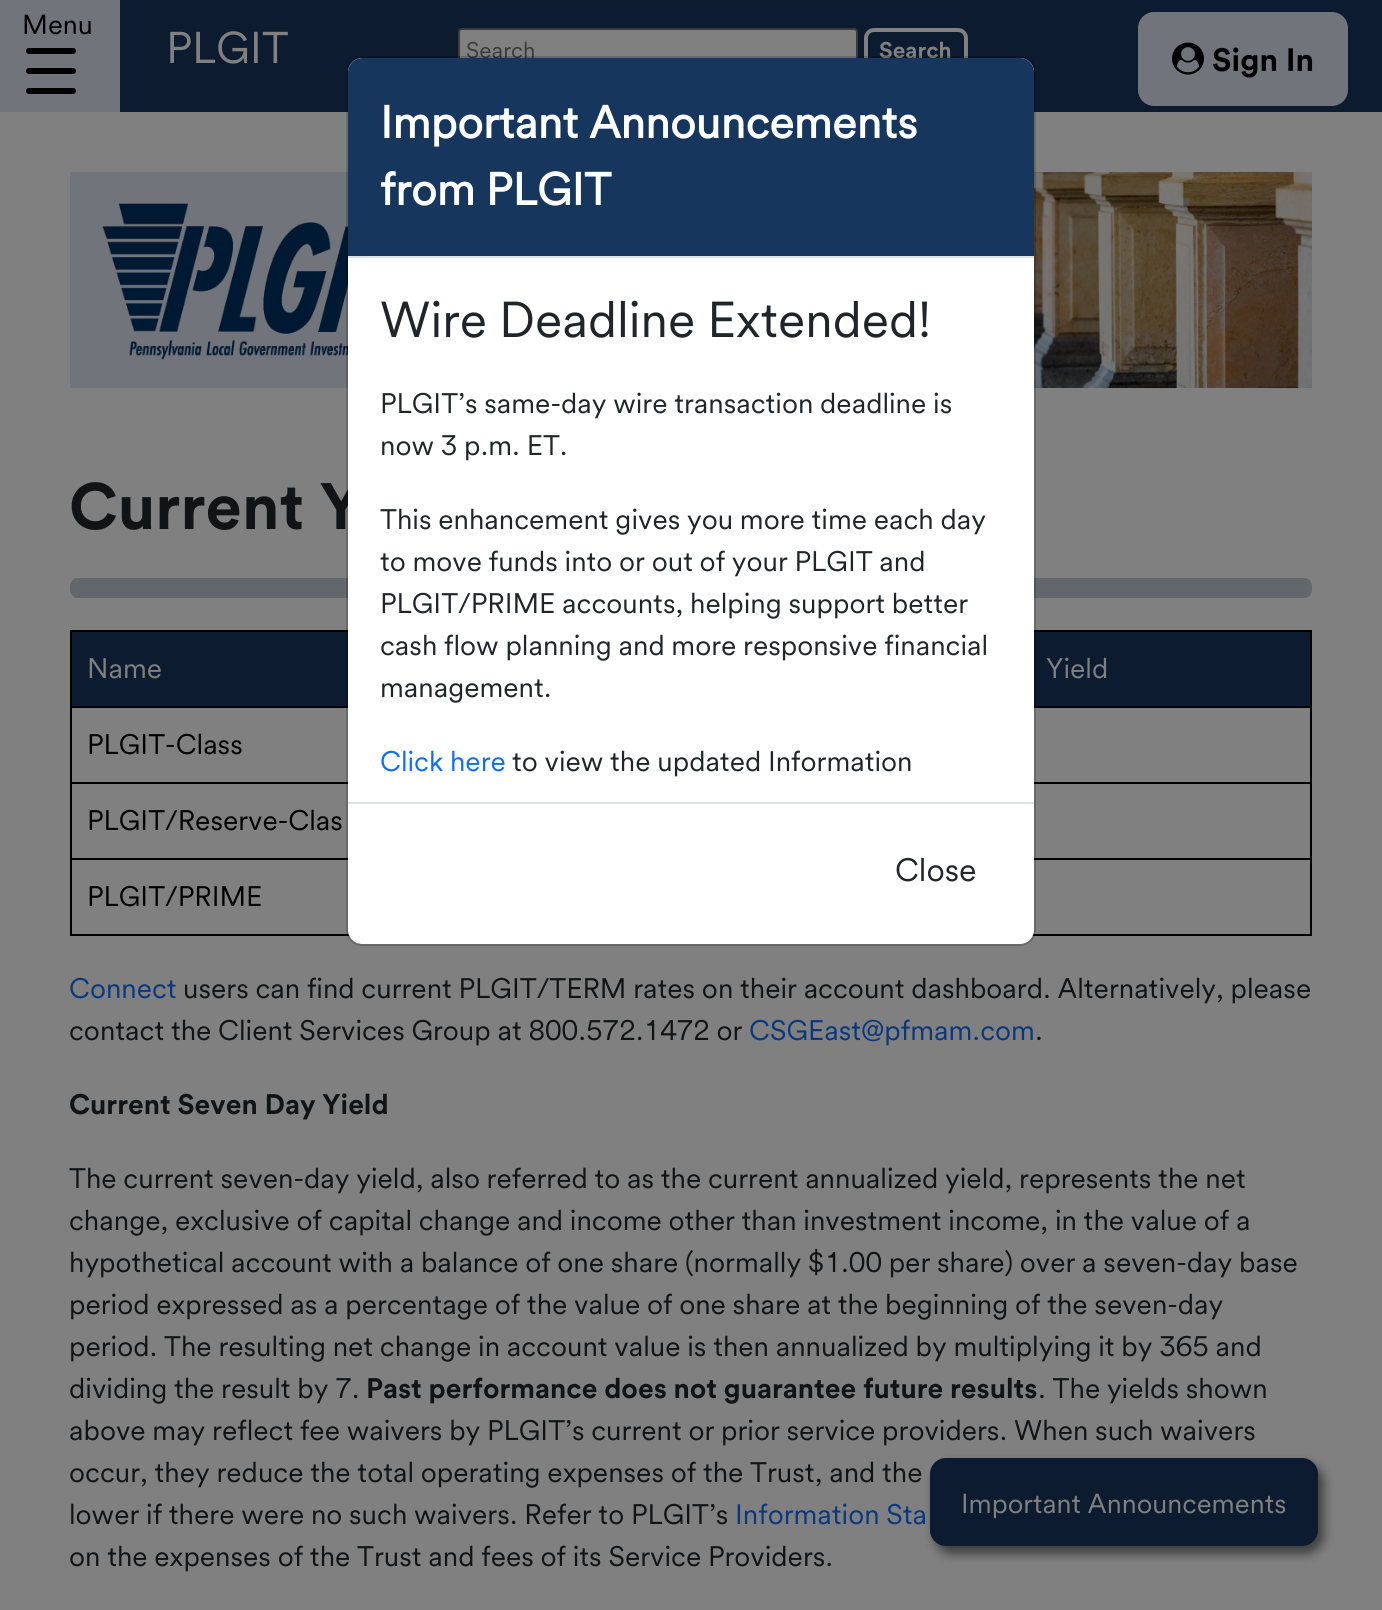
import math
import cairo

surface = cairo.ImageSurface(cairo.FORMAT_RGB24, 1382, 1610)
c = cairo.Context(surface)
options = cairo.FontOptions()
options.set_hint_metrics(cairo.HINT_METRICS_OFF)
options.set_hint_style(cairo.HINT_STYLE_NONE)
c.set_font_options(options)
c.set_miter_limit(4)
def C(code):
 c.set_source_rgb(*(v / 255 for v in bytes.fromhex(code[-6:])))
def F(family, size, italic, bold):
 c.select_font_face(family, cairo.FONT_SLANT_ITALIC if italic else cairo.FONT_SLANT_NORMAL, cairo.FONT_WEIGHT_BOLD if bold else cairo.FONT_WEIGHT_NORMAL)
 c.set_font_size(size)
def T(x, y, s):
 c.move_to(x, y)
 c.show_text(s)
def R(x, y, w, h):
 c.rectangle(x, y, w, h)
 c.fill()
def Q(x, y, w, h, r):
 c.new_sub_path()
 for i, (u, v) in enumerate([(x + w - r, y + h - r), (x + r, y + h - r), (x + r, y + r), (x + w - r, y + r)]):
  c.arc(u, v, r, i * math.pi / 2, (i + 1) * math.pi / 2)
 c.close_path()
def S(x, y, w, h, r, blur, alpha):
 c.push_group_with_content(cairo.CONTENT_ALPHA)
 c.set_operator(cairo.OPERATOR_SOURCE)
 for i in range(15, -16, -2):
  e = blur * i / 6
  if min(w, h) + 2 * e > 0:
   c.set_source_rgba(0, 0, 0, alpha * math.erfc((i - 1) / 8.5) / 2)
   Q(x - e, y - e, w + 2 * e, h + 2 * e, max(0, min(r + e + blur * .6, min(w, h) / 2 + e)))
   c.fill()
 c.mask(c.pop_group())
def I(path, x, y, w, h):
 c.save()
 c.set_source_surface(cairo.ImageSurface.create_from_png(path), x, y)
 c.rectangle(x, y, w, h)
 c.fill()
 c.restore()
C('808080')
c.paint()
C('0c1b2f')
R(120,0,1262,112)
C('71747a')
R(0,0,120,112)
F('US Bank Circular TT',27.25,0,0)
C('000000')
T(22,34,'Menu')
Q(26,48,50,6,3)
c.fill()
Q(26,68,50,6,3)
c.fill()
Q(26,88,50,6,3)
c.fill()
F('US Bank Circular TT',44,0,0)
C('808080')
T(166,63,'PLGIT')
Q(459,29,398,44,3)
c.fill_preserve()
C('3b3b3b')
c.stroke()
F('US Bank Circular TT',22.5,0,0)
T(466,58,'Search')
Q(866,30,100,42,8)
C('808080')
c.set_line_width(4)
c.stroke()
F('US Bank Circular TT',22.5,0,1)
T(879,58,'Search')
C('71747a')
Q(1139,13,208,92,15)
c.fill_preserve()
c.set_line_width(2)
c.stroke()
I('1.png',1172,42,32,33)
F('US Bank Circular TT',32,0,1)
C('000000')
T(1212,71,'Sign In')
R(70,630,1242,2)
R(1310,630,2,306)
R(70,934,1242,2)
C('0c1b2f')
R(72,632,1238,74)
C('000000')
R(70,630,2,306)
R(70,706,1242,2)
I('2.png',70,172,1242,216)
F('US Bank Circular TT',64.75,0,1)
C('111315')
T(69,529,'Current Y')
C('63676c')
Q(70,578,1242,20,8)
c.fill()
C('ffffff')
Q(348,58,686,886,14)
c.fill()
C('000000')
R(1034,782,278,2)
R(70,782,278,2)
R(1034,858,278,2)
R(70,858,278,2)
Q(347,57,688,888,15)
c.set_source_rgba(0,0,0,0.18)
c.stroke()
C('17365d')
c.new_path()
c.move_to(362,58)
c.line_to(1020,58)
c.curve_to(1027.5,58,1034,64.5,1034,72)
c.line_to(1034,258)
c.line_to(348,258)
c.line_to(348,72)
c.curve_to(348,64.5,354.5,58,362,58)
c.close_path()
c.fill()
C('dee2e6')
R(348,256,686,2)
F('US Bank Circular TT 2',45,0,1)
C('ffffff')
T(380,138,'Important Announcements')
T(380,205,'from PLGIT')
F('US Bank Circular TT',49.9,0,0)
C('212529')
T(380,337,'Wire Deadline Extended!')
F('US Bank Circular TT',28,0,0)
T(380,413,'PLGIT’s same-day wire transaction deadline is')
T(380,455,'now 3 p.m. ET.')
T(380,529,'This enhancement gives you more time each day')
T(380,571,'to move funds into or out of your PLGIT and')
T(380,613,'PLGIT/PRIME accounts, helping support better')
T(380,655,'cash flow planning and more responsive financial')
T(380,697,'management.')
C('0d6efd')
T(380,771,'Click here')
C('212529')
T(512,771,'to view the updated Information')
C('dee2e6')
R(348,802,686,2)
F('US Bank Circular TT',32,0,0)
C('212529')
T(895,881,'Close')
C('404040')
S(934,1464,390,90,18,5,1)
C('0c1b2f')
Q(930,1458,388,88,16)
c.fill()
F('US Bank Circular TT',27.25,0,0)
C('808080')
T(961,1513,'Important Announcements')
F('US Bank Circular TT',28,0,0)
T(87,678,'Name')
T(1046,678,'Yield')
C('000000')
T(87,754,'PLGIT-Class')
T(87,830,'PLGIT/Reserve-Clas')
T(87,906,'PLGIT/PRIME')
C('07377f')
T(69,998,'Connect')
C('111315')
T(183,998,'users can find current PLGIT/TERM rates on their account dashboard. Alternatively, please')
T(69,1040,'contact the Client Services Group at 800.572.1472 or')
C('07377f')
T(749,1040,'CSGEast@pfmam.com')
C('111315')
T(1035,1040,'.')
F('US Bank Circular TT',28,0,1)
T(69,1114,'Current Seven Day Yield')
F('US Bank Circular TT',28,0,0)
T(69,1188,'The current seven-day yield, also referred to as the current annualized yield, represents the net')
T(69,1230,'change, exclusive of capital change and income other than investment income, in the value of a')
T(69,1272,'hypothetical account with a balance of one share (normally $1.00 per share) over a seven-day base')
T(69,1314,'period expressed as a percentage of the value of one share at the beginning of the seven-day')
T(69,1356,'period. The resulting net change in account value is then annualized by multiplying it by 365 and')
T(69,1398,'dividing the result by 7.')
F('US Bank Circular TT',28,0,1)
T(366,1398,'Past performance does not guarantee future results')
F('US Bank Circular TT',28,0,0)
T(1038,1398,'. The yields shown')
T(69,1440,'above may reflect fee waivers by PLGIT’s current or prior service providers. When such waivers')
T(69,1482,'occur, they reduce the total operating expenses of the Trust, and the')
T(69,1524,'lower if there were no such waivers. Refer to PLGIT’s')
C('07377f')
T(735,1524,'Information Sta')
C('111315')
T(69,1566,'on the expenses of the Trust and fees of its Service Providers.')
surface.write_to_png('o.png')
